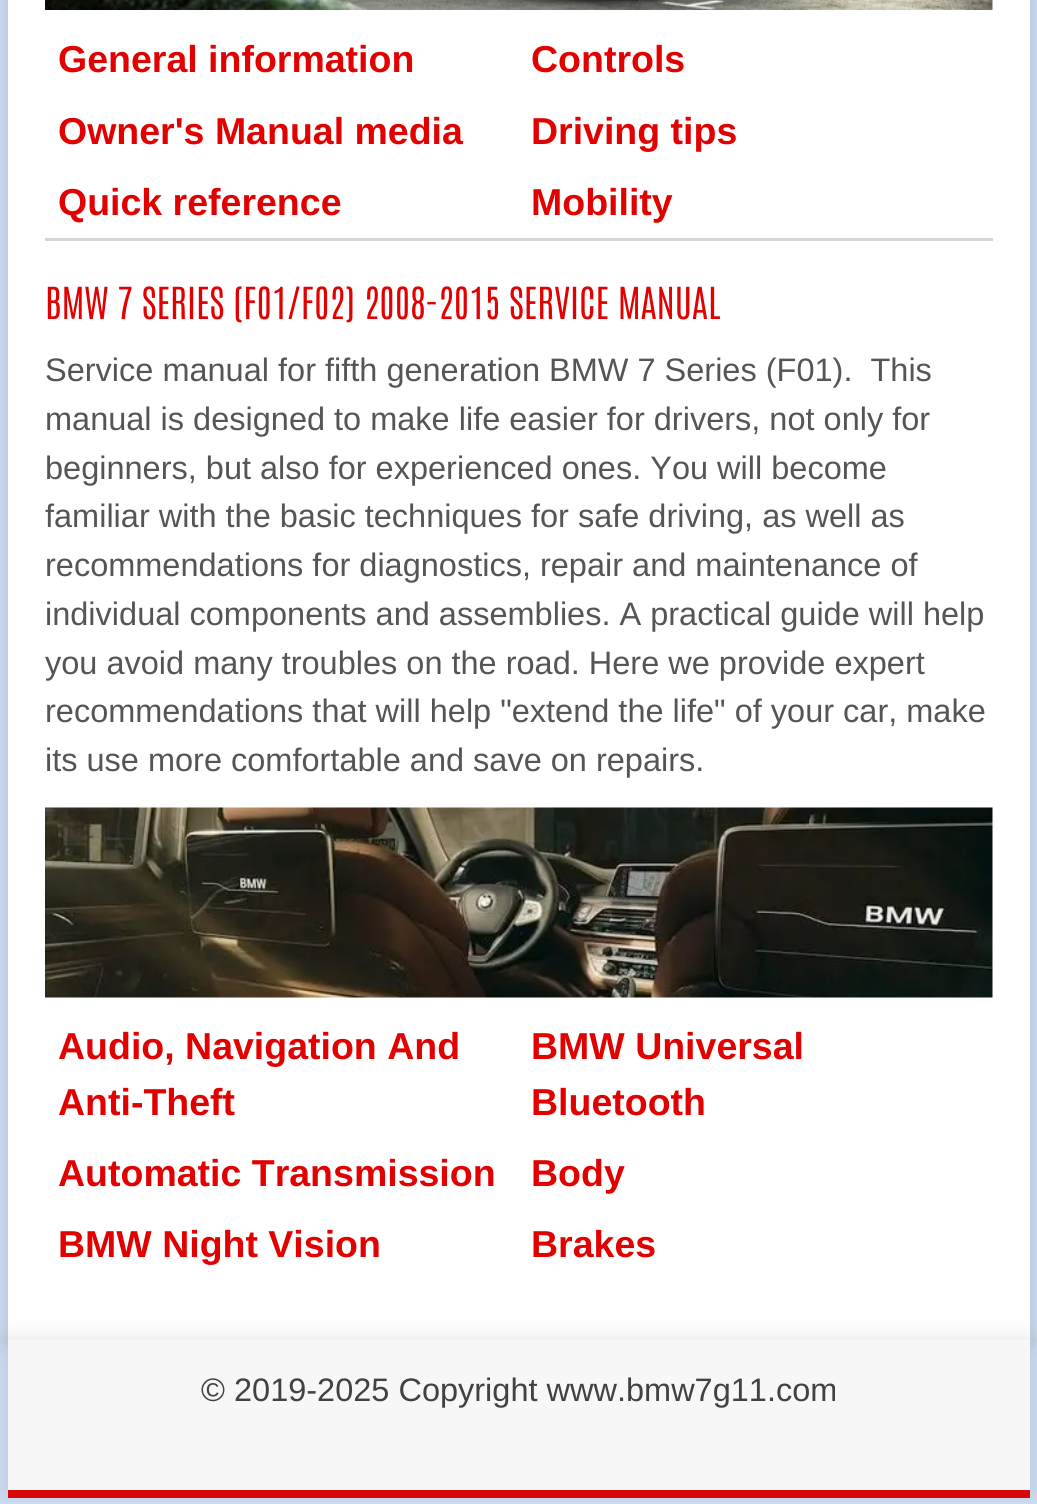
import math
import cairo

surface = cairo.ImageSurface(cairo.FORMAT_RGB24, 1037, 1504)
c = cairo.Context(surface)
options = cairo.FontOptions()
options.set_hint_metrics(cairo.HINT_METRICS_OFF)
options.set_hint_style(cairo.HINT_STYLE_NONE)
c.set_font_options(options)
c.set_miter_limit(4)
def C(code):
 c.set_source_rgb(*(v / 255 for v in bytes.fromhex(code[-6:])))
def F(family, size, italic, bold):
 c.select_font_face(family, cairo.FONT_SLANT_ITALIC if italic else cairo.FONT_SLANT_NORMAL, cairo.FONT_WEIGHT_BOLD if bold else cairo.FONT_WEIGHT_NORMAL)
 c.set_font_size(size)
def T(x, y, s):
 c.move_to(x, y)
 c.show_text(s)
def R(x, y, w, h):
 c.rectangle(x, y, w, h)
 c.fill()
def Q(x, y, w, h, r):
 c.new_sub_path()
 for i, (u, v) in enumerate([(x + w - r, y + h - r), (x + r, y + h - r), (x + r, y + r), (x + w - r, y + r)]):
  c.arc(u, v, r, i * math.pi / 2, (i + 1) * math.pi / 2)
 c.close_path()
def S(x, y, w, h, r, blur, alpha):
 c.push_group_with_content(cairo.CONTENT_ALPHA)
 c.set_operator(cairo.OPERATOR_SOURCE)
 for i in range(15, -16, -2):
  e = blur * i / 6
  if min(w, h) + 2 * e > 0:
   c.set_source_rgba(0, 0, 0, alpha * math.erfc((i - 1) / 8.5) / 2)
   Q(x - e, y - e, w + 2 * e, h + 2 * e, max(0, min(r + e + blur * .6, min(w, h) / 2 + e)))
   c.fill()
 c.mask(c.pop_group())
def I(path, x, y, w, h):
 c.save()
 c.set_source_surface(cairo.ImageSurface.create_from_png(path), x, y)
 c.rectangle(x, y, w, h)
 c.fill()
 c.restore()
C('cdddf3')
c.paint()
C('e10101')
R(8,1490,1022,8)
C('606060')
S(5,-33,1028,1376,0,11,.2)
C('ffffff')
R(8,0,1022,1340)
I('1.png',45,0,948,10)
F('Liberation Sans',37.5,0,1)
C('e20101')
T(58,72,'General information')
T(58,144,'Owner\'s Manual media')
T(58,215,'Quick reference')
T(531,72,'Controls')
T(531,144,'Driving tips')
T(531,215,'Mobility')
C('d5d5d5')
R(45,238,948,3)
F('Antonio Light',37.5,0,0)
C('e20101')
T(45,319,'BMW 7 SERIES (F01/F02) 2008-2015 SERVICE MANUAL')
F('Liberation Sans',32.5,0,0)
C('555555')
T(45,381,'Service manual for fifth generation BMW 7 Series (F01).  This')
T(45,430,'manual is designed to make life easier for drivers, not only for')
T(45,479,'beginners, but also for experienced ones. You will become')
T(45,527,'familiar with the basic techniques for safe driving, as well as')
T(45,576,'recommendations for diagnostics, repair and maintenance of')
T(45,625,'individual components and assemblies. A practical guide will help')
T(45,674,'you avoid many troubles on the road. Here we provide expert')
T(45,722,'recommendations that will help "extend the life" of your car, make')
T(45,771,'its use more comfortable and save on repairs.')
I('2.png',45,807,948,191)
F('Liberation Sans',37.5,0,1)
C('e20101')
T(58,1059,'Audio, Navigation And')
T(58,1115,'Anti-Theft')
T(58,1186,'Automatic Transmission')
T(58,1257,'BMW Night Vision')
T(531,1059,'BMW Universal')
T(531,1115,'Bluetooth')
T(531,1186,'Body')
T(531,1257,'Brakes')
C('606060')
S(5,1338,1028,155,0,11,.15)
C('f7f7f7')
R(8,1340,1022,150)
F('Liberation Sans',32.5,0,0)
C('434141')
T(201,1401,'© 2019-2025 Copyright www.bmw7g11.com')
surface.write_to_png('o.png')
